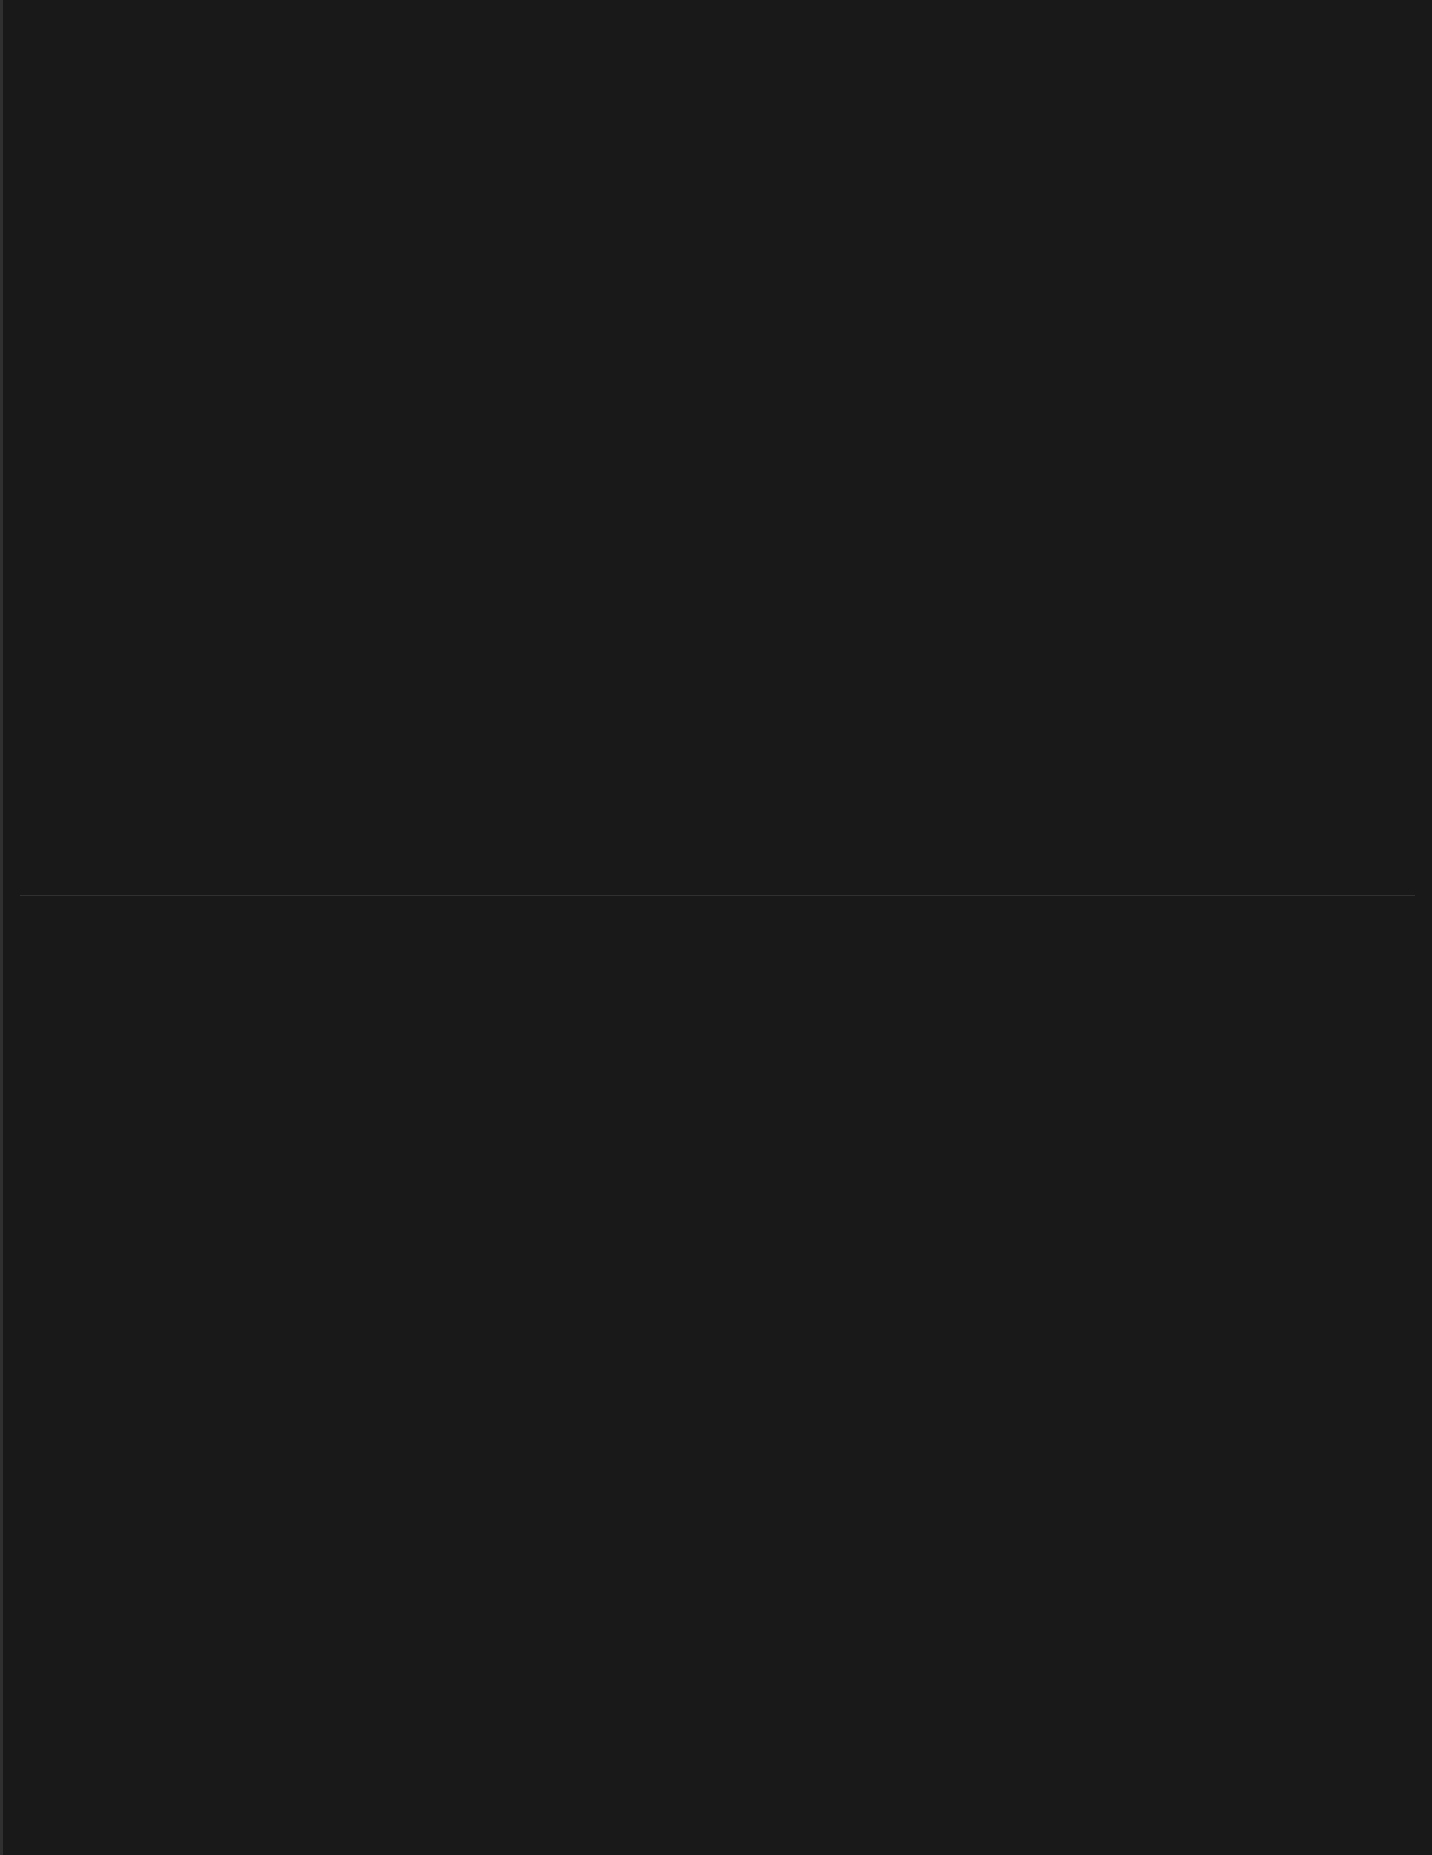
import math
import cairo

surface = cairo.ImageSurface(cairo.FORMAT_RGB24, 1432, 1855)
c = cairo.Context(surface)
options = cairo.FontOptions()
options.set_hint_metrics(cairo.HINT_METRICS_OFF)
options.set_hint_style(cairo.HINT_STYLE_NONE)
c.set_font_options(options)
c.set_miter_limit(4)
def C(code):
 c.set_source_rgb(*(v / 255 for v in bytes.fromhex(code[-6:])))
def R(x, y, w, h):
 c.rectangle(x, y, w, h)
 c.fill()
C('191919')
c.paint()
C('303030')
R(0,0,3,1855)
R(20,895,1395,1)
surface.write_to_png('o.png')
